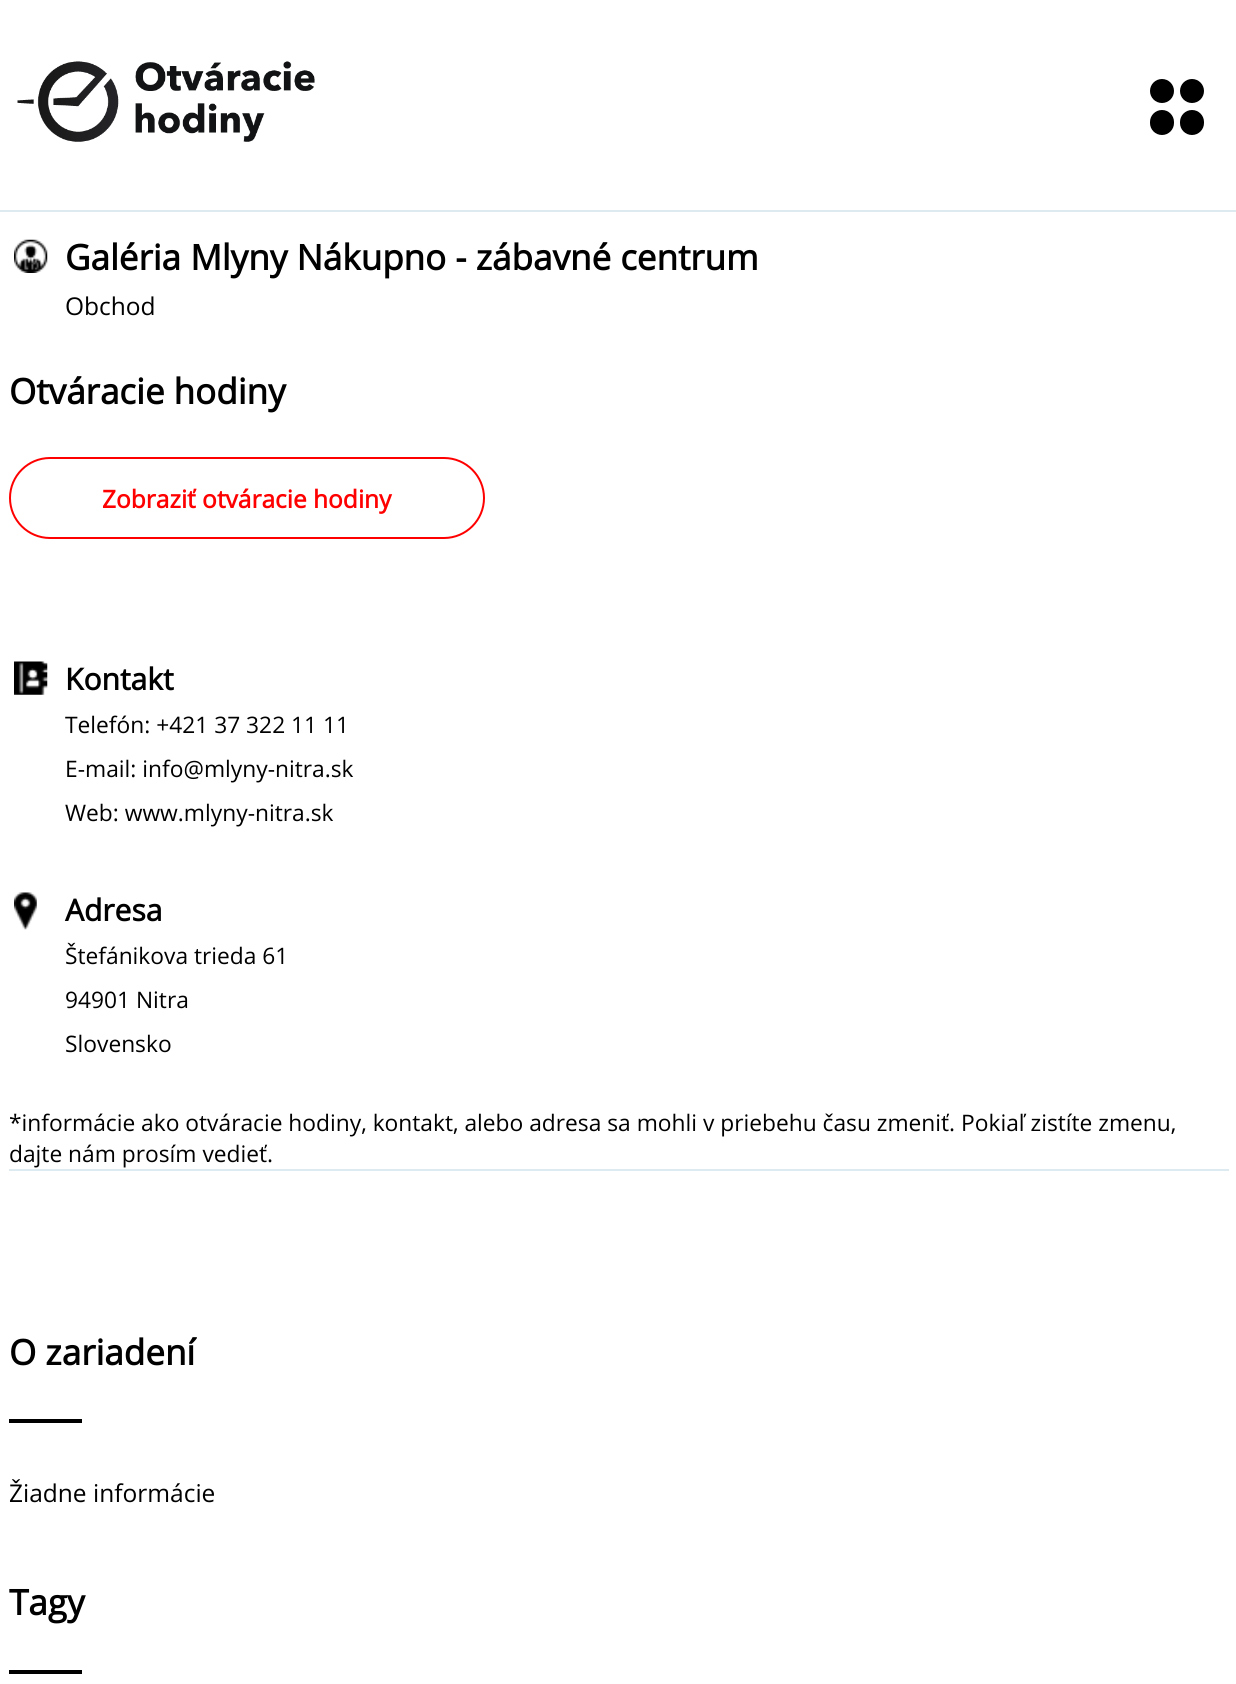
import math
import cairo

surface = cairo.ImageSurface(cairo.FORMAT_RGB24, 1236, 1684)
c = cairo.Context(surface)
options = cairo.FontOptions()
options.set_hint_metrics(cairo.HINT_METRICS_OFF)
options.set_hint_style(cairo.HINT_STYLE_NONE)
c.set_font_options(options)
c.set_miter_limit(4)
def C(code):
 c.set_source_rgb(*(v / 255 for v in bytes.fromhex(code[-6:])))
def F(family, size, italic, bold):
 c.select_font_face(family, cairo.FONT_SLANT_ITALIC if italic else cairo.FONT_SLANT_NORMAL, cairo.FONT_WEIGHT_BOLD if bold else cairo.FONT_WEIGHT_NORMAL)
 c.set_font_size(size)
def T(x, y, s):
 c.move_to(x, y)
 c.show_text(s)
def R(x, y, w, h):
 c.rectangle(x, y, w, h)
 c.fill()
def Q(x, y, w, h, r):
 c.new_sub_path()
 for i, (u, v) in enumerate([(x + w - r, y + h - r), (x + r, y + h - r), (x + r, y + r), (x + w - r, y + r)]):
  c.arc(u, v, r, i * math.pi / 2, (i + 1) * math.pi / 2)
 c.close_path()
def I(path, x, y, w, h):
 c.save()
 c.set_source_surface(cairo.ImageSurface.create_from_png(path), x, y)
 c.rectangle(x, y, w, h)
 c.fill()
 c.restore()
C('ffffff')
c.paint()
C('ddeaf0')
R(0,210,1236,2)
I('1.png',17,61,298,81)
C('000000')
c.arc(1162,91,12,0,2 * math.pi)
c.fill()
c.arc(1192,91,12,0,2 * math.pi)
c.fill()
Q(1150,110,24,25,12)
c.fill()
Q(1180,110,24,25,12)
c.fill()
I('2.png',14,239,34,34)
F('Open Sans',35,0,1)
T(65,270,'Galéria Mlyny Nákupno - zábavné centrum')
F('Open Sans',24.5,0,0)
T(65,315,'Obchod')
F('Open Sans',35,0,1)
T(9,404,'Otváracie hodiny')
Q(10,458,474,80,40)
C('ff0000')
c.stroke()
F('Open Sans',24.5,0,1)
T(102,508,'Zobraziť otváracie hodiny')
I('3.png',14,661,34,34)
F('Open Sans',30,0,1)
C('000000')
T(65,690,'Kontakt')
F('Open Sans',22.75,0,0)
T(65,733,'Telefón: +421 37 322 11 11')
T(65,777,'E-mail: info@mlyny-nitra.sk')
T(65,821,'Web: www.mlyny-nitra.sk')
I('4.png',14,892,23,38)
F('Open Sans',30,0,1)
T(65,921,'Adresa')
F('Open Sans',22.75,0,0)
T(65,964,'Štefánikova trieda 61')
T(65,1008,'94901 Nitra')
T(65,1052,'Slovensko')
T(9,1131,'*informácie ako otváracie hodiny, kontakt, alebo adresa sa mohli v priebehu času zmeniť. Pokiaľ zistíte zmenu,')
T(9,1162,'dajte nám prosím vedieť.')
C('ddeaf0')
R(9,1169,1220,2)
F('Open Sans',35,0,1)
C('000000')
T(9,1365,'O zariadení')
R(9,1419,73,4)
F('Open Sans',24.5,0,0)
T(9,1502,'Žiadne informácie')
F('Open Sans',35,0,1)
T(9,1615,'Tagy')
R(9,1670,73,4)
surface.write_to_png('o.png')
